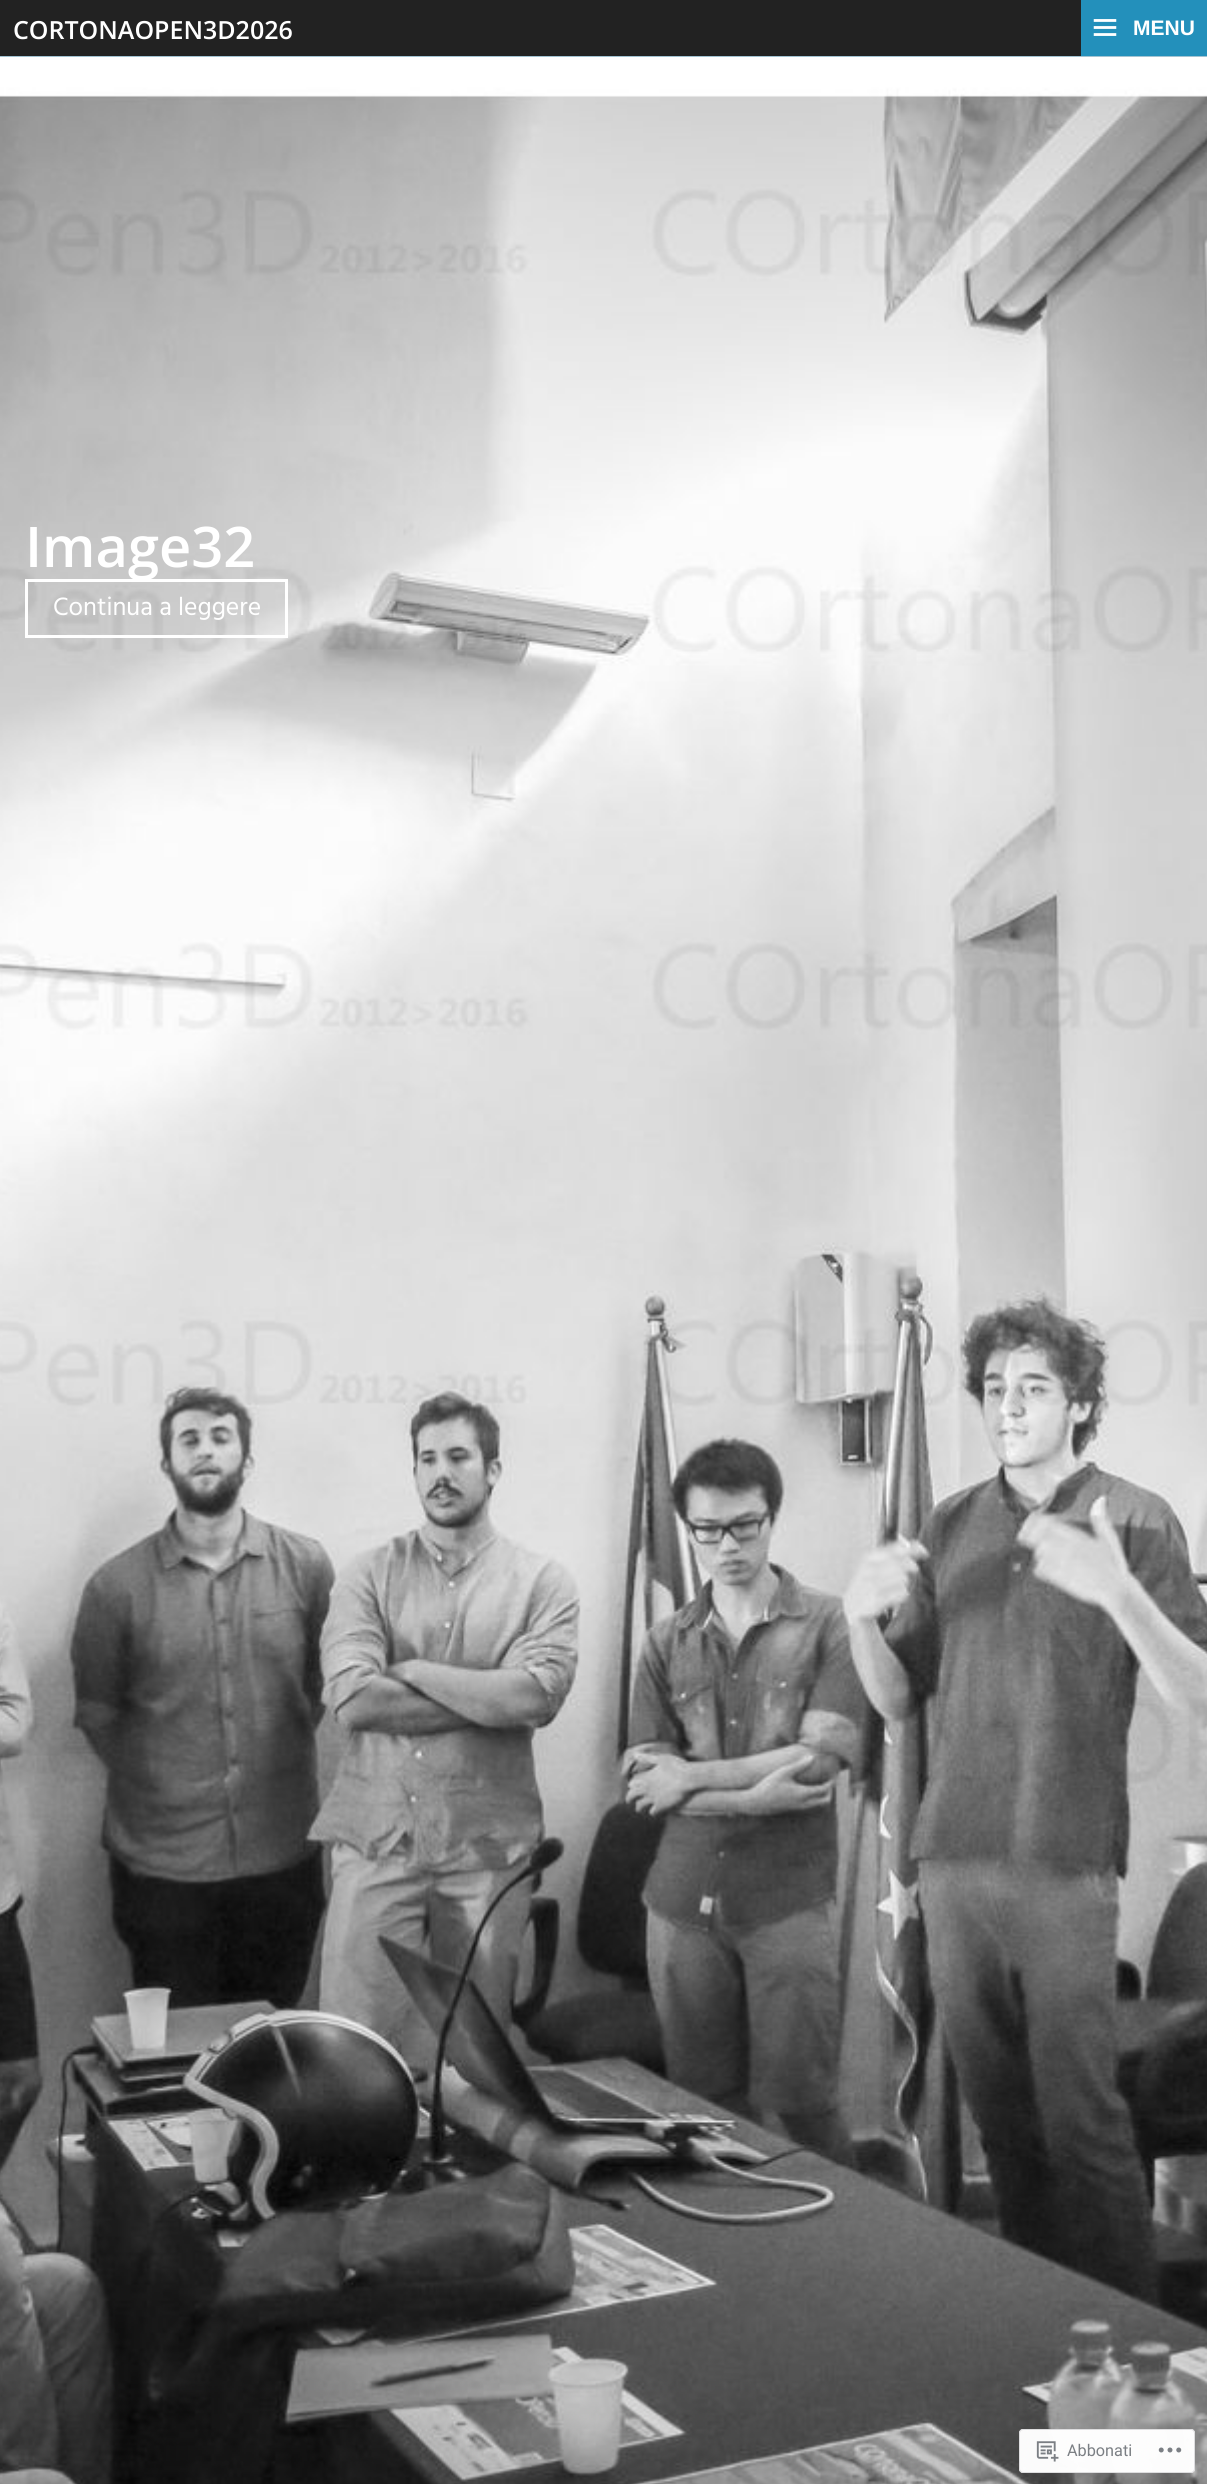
import math
import cairo

surface = cairo.ImageSurface(cairo.FORMAT_RGB24, 1207, 2484)
c = cairo.Context(surface)
options = cairo.FontOptions()
options.set_hint_metrics(cairo.HINT_METRICS_OFF)
options.set_hint_style(cairo.HINT_STYLE_NONE)
c.set_font_options(options)
c.set_miter_limit(4)
def C(code):
 c.set_source_rgb(*(v / 255 for v in bytes.fromhex(code[-6:])))
def F(family, size, italic, bold):
 c.select_font_face(family, cairo.FONT_SLANT_ITALIC if italic else cairo.FONT_SLANT_NORMAL, cairo.FONT_WEIGHT_BOLD if bold else cairo.FONT_WEIGHT_NORMAL)
 c.set_font_size(size)
def T(x, y, s):
 c.move_to(x, y)
 c.show_text(s)
def R(x, y, w, h):
 c.rectangle(x, y, w, h)
 c.fill()
def Q(x, y, w, h, r):
 c.new_sub_path()
 for i, (u, v) in enumerate([(x + w - r, y + h - r), (x + r, y + h - r), (x + r, y + r), (x + w - r, y + r)]):
  c.arc(u, v, r, i * math.pi / 2, (i + 1) * math.pi / 2)
 c.close_path()
def I(path, x, y, w, h):
 c.save()
 c.set_source_surface(cairo.ImageSurface.create_from_png(path), x, y)
 c.rectangle(x, y, w, h)
 c.fill()
 c.restore()
C('2a7697')
c.paint()
C('222222')
R(0,0,1081,56)
F('Open Sans SemiBold',25,0,0)
C('ffffff')
T(13,39,'CORTONAOPEN3D2026')
C('2390bb')
R(1081,0,126,56)
I('1.png',1093,19,24,17)
F('Liberation Sans',21,0,1)
C('ffffff')
T(1133,35,'MENU')
I('2.png',0,56,1207,2428)
F('Open Sans SemiBold',56,0,0)
T(25,567,'Image32')
c.rectangle(26.5,580.5,260,56)
c.set_line_width(3)
c.stroke()
F('Hind',25.75,0,0)
T(53,615,'Continua a leggere')
c.set_source_rgba(1,1,1,0.98)
Q(1019,2429,176,44,4)
c.fill()
Q(1019.5,2429.5,175,43,3.5)
c.set_source_rgba(0.863,0.863,0.871,0.98)
c.set_line_width(1)
c.stroke()
I('3.png',1036,2441,23,21)
F('Roboto',16.25,0,0)
C('7b7f84')
T(1067,2456,'Abbonati')
I('4.png',1158,2447,24,6)
surface.write_to_png('o.png')
